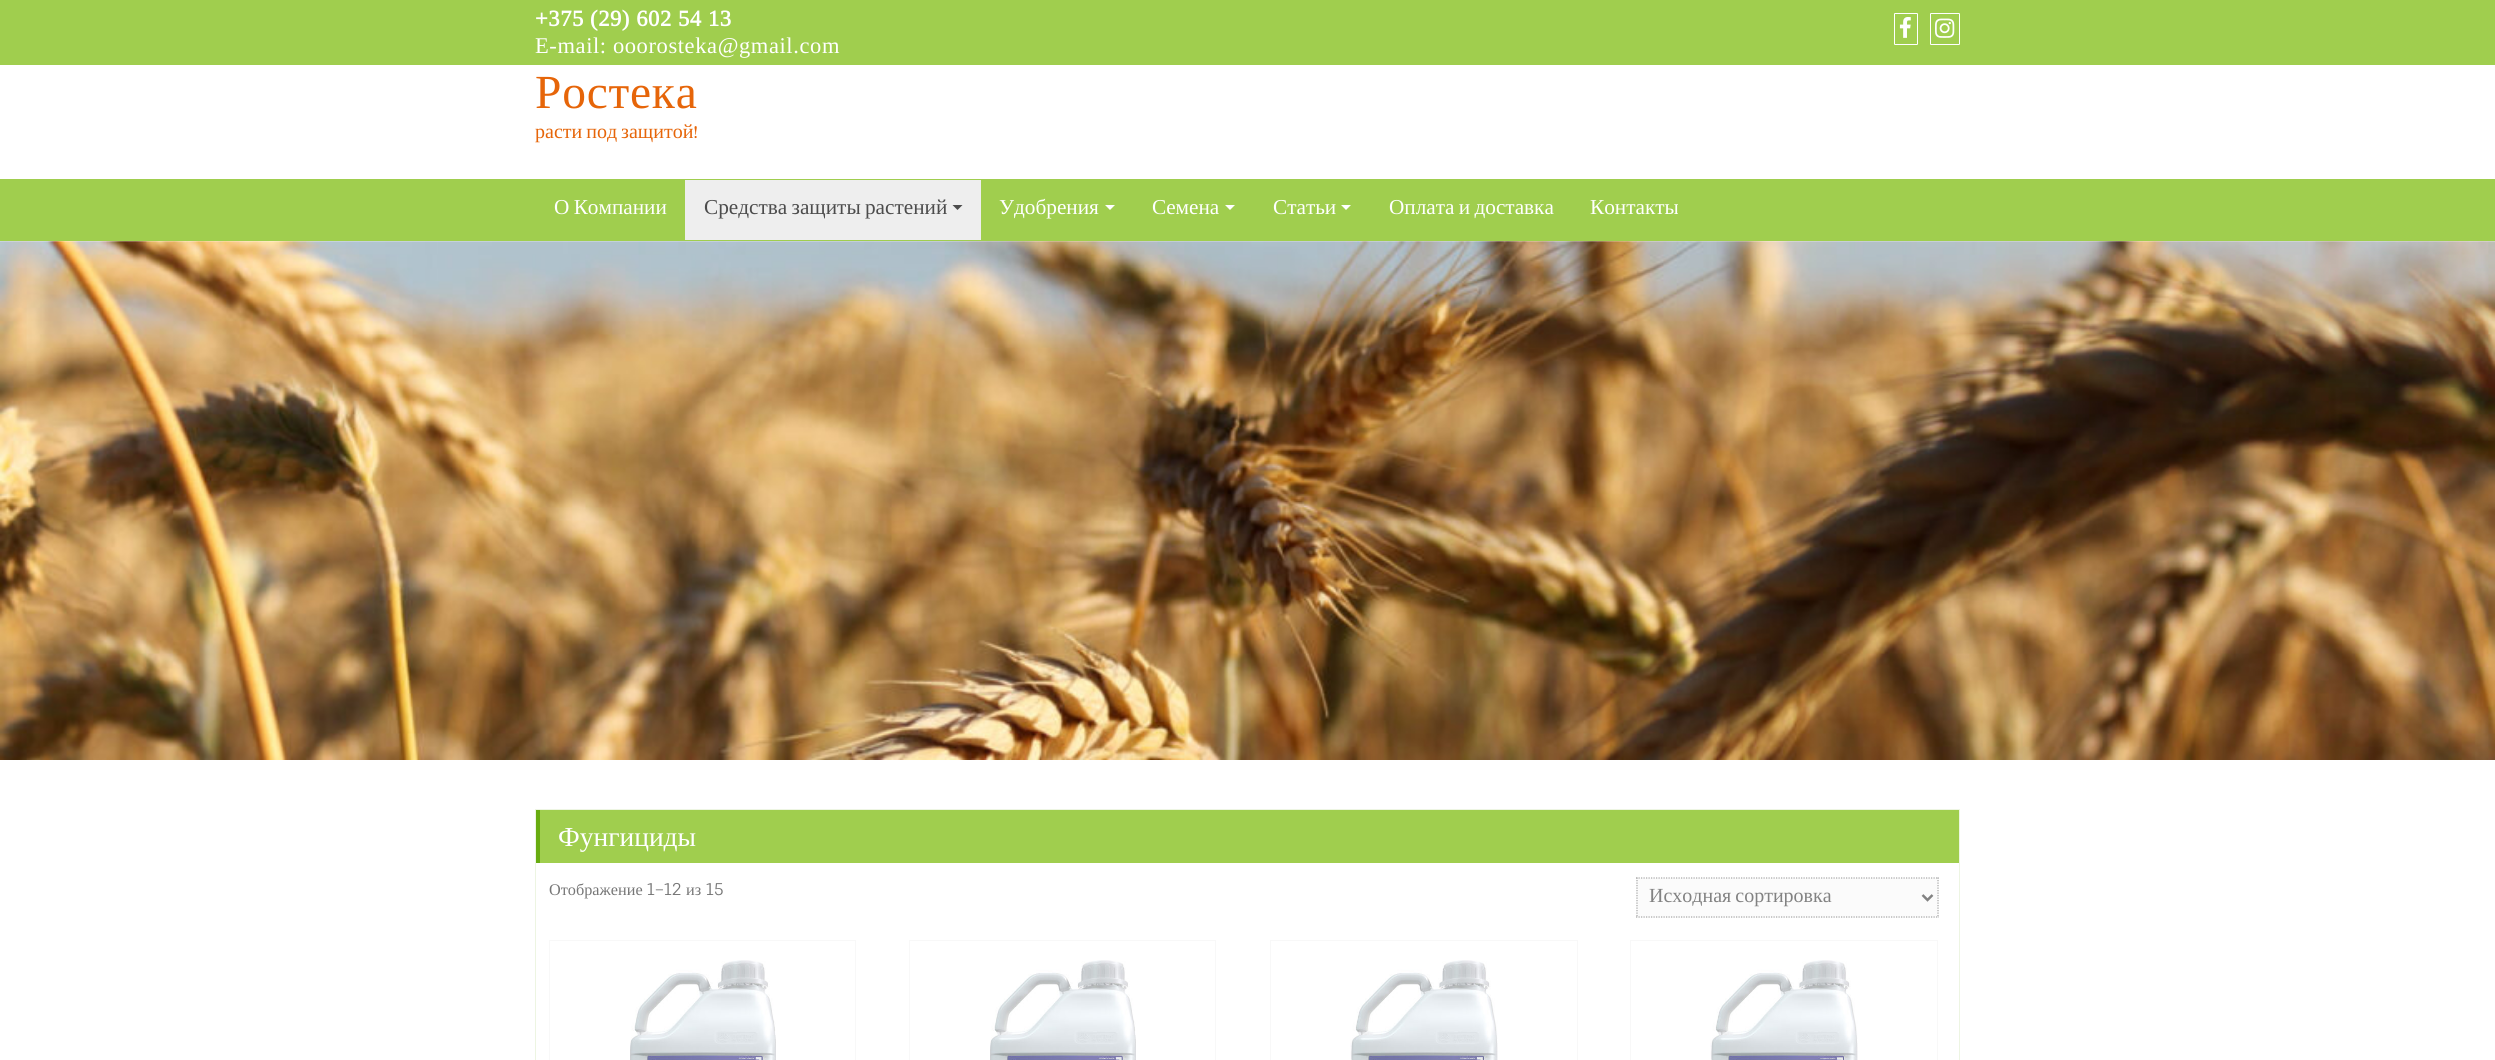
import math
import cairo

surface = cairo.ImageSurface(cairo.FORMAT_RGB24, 2495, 1060)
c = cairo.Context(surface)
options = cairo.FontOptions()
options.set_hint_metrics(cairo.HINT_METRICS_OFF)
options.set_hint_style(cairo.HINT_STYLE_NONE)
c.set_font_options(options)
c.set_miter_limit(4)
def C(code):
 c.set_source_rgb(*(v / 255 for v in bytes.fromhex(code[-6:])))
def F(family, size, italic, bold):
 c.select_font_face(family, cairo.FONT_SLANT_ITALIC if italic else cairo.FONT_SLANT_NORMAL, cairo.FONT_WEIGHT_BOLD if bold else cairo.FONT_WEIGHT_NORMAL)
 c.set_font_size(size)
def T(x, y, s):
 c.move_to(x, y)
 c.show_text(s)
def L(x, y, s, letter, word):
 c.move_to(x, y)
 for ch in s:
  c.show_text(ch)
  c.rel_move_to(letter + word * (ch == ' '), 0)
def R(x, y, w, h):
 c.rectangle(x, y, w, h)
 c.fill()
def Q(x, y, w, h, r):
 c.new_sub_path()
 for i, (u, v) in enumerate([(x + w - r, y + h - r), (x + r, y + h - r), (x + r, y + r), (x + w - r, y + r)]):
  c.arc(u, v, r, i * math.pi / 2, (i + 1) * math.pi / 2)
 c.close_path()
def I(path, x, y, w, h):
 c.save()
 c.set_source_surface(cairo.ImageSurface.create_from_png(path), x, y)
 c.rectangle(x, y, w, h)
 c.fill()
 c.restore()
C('ffffff')
c.paint()
C('a0ce4e')
R(0,0,2495,65)
F('Tinos',22.5,0,1)
C('ffffff')
L(535,26,'+375 (29) 602 54 13',.6,0)
F('Tinos',22.5,0,0)
L(535,53,'E-mail: ooorosteka@gmail.com',.6,0)
Q(1894.5,13.5,23,31,.5)
c.set_line_width(1)
c.stroke()
I('1.png',1899,17,12,21)
Q(1930.5,13.5,29,31,.5)
c.stroke()
I('2.png',1935,18,20,20)
F('Liberation Serif',47.5,0,0)
C('e66509')
L(535,108,'Ростека',.75,0)
F('Liberation Serif',20,0,0)
L(535,138,'расти под защитой',0,-1)
F('Abhaya Libre Medium Medium',20,0,0)
T(693,138,'!')
C('a0ce4e')
R(0,179,2495,62)
F('Liberation Serif',21.25,0,0)
C('ffffff')
L(554,214,'О Компании',0,-1)
C('eeeeee')
R(685,180,296,60)
C('4c4c4c')
L(704,214,'Средства защиты растений',0,-1)
c.new_path()
c.move_to(952.5,205)
c.line_to(962.5,205)
c.line_to(957.5,210)
c.close_path()
c.fill()
C('ffffff')
T(999,214,'Удобрения')
c.new_path()
c.move_to(1105,205)
c.line_to(1115,205)
c.line_to(1110,210)
c.close_path()
c.fill()
T(1152,214,'Семена')
c.new_path()
c.move_to(1225,205)
c.line_to(1235,205)
c.line_to(1230,210)
c.close_path()
c.fill()
T(1273,214,'Статьи')
c.new_path()
c.move_to(1341,205)
c.line_to(1351,205)
c.line_to(1346,210)
c.close_path()
c.fill()
L(1389,214,'Оплата и доставка',0,-1)
T(1590,214,'Контакты')
I('3.png',0,241,2495,519)
c.rectangle(535.5,809.5,1424,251)
C('edf5e2')
c.stroke()
C('a0ce4e')
R(540,810,1419,53)
C('68ac10')
R(536,810,4,53)
F('Liberation Serif',27.5,0,0)
C('ffffff')
T(558,846,'Фунгициды')
F('Liberation Serif',16.25,0,0)
C('767676')
T(549,895,'Отображение')
F('Fauna One',16.25,0,0)
T(647,895,'1–12')
F('Liberation Serif',16.25,0,0)
T(686,895,'из')
F('Fauna One',16.25,0,0)
T(706,895,'15')
C('fbfbfb')
R(1636,878,303,40)
c.new_path()
c.move_to(1636,878)
c.line_to(1939,878)
C('a7a7a7')
c.set_line_width(1.2)
c.set_dash([1.25,1.25])
c.stroke()
c.new_path()
c.move_to(1938,877.5)
c.line_to(1938,917.5)
c.stroke()
c.new_path()
c.move_to(1636,917)
c.line_to(1939,917)
c.stroke()
c.new_path()
c.move_to(1637,877.5)
c.line_to(1637,917.5)
c.stroke()
c.new_path()
c.move_to(1922.5,895)
c.line_to(1927.5,900)
c.line_to(1932.5,895)
C('828282')
c.set_line_width(2.5)
c.set_dash([])
c.stroke()
F('Liberation Serif',20,0,0)
L(1649,902,'Исходная сортировка',0,-1)
c.rectangle(549.5,940.5,306,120)
C('f8f8f8')
c.set_line_width(1)
c.stroke()
I('4.png',630,960,146,100)
c.rectangle(909.5,940.5,306,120)
c.stroke()
I('5.png',990,960,146,100)
c.rectangle(1270.5,940.5,307,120)
c.stroke()
I('6.png',1350,960,148,100)
c.rectangle(1630.5,940.5,307,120)
c.stroke()
I('7.png',1710,960,148,100)
surface.write_to_png('o.png')
